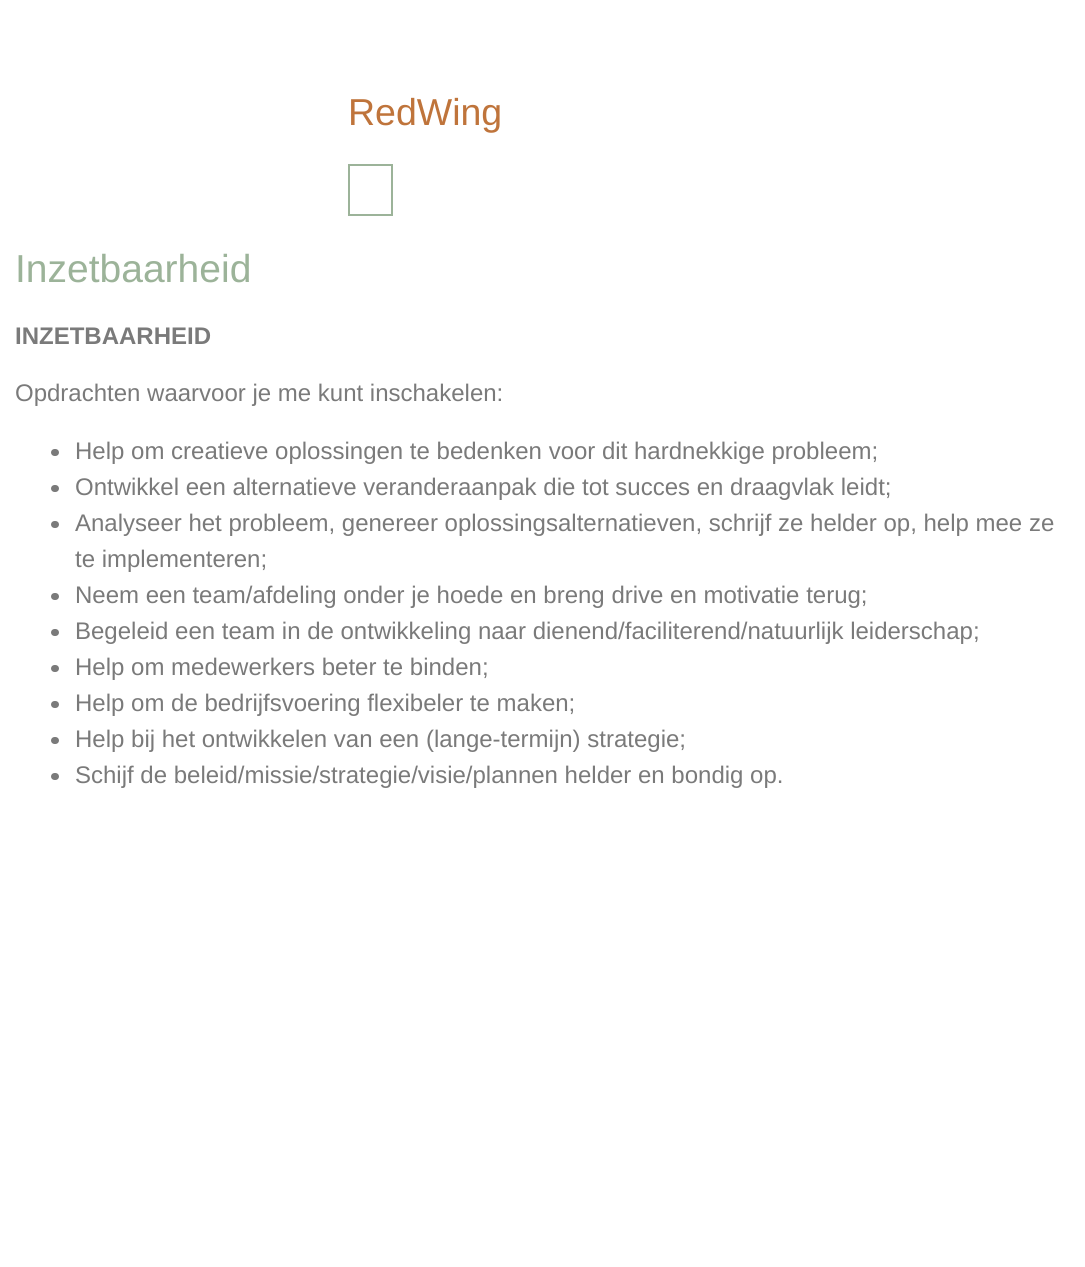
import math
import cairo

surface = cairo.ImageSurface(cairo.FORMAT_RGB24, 1085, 1267)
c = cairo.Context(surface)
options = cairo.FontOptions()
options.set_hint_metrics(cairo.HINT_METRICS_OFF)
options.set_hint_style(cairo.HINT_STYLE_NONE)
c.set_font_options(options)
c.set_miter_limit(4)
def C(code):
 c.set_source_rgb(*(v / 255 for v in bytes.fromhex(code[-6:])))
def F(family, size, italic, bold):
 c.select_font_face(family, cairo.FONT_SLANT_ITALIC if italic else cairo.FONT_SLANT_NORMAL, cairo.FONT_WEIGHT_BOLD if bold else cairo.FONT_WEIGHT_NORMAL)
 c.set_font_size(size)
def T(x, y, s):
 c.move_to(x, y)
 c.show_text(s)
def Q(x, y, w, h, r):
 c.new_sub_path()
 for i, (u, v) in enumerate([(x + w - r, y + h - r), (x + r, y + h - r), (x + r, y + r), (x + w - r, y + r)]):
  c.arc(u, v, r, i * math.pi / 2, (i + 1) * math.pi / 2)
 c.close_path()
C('ffffff')
c.paint()
F('Liberation Sans',37.5,0,0)
C('bf743b')
T(348,125,'RedWing')
c.rectangle(349,165,43,50)
C('9cb399')
c.stroke()
F('Liberation Sans',39,0,0)
T(15,282,'Inzetbaarheid')
F('Liberation Sans',24,0,1)
C('7a7a7a')
T(15,344,'INZETBAARHEID')
F('Liberation Sans',24,0,0)
T(15,401,'Opdrachten waarvoor je me kunt inschakelen:')
Q(51,449,8,7,3.5)
c.fill()
T(75,459,'Help om creatieve oplossingen te bedenken voor dit hardnekkige probleem;')
Q(51,485,8,7,3.5)
c.fill()
T(75,495,'Ontwikkel een alternatieve veranderaanpak die tot succes en draagvlak leidt;')
Q(51,521,8,7,3.5)
c.fill()
T(75,531,'Analyseer het probleem, genereer oplossingsalternatieven, schrijf ze helder op, help mee ze')
T(75,567,'te implementeren;')
Q(51,593,8,7,3.5)
c.fill()
T(75,603,'Neem een team/afdeling onder je hoede en breng drive en motivatie terug;')
Q(51,629,8,7,3.5)
c.fill()
T(75,639,'Begeleid een team in de ontwikkeling naar dienend/faciliterend/natuurlijk leiderschap;')
Q(51,665,8,7,3.5)
c.fill()
T(75,675,'Help om medewerkers beter te binden;')
Q(51,701,8,7,3.5)
c.fill()
T(75,711,'Help om de bedrijfsvoering flexibeler te maken;')
Q(51,737,8,7,3.5)
c.fill()
T(75,747,'Help bij het ontwikkelen van een (lange-termijn) strategie;')
Q(51,773,8,7,3.5)
c.fill()
T(75,783,'Schijf de beleid/missie/strategie/visie/plannen helder en bondig op.')
surface.write_to_png('o.png')
